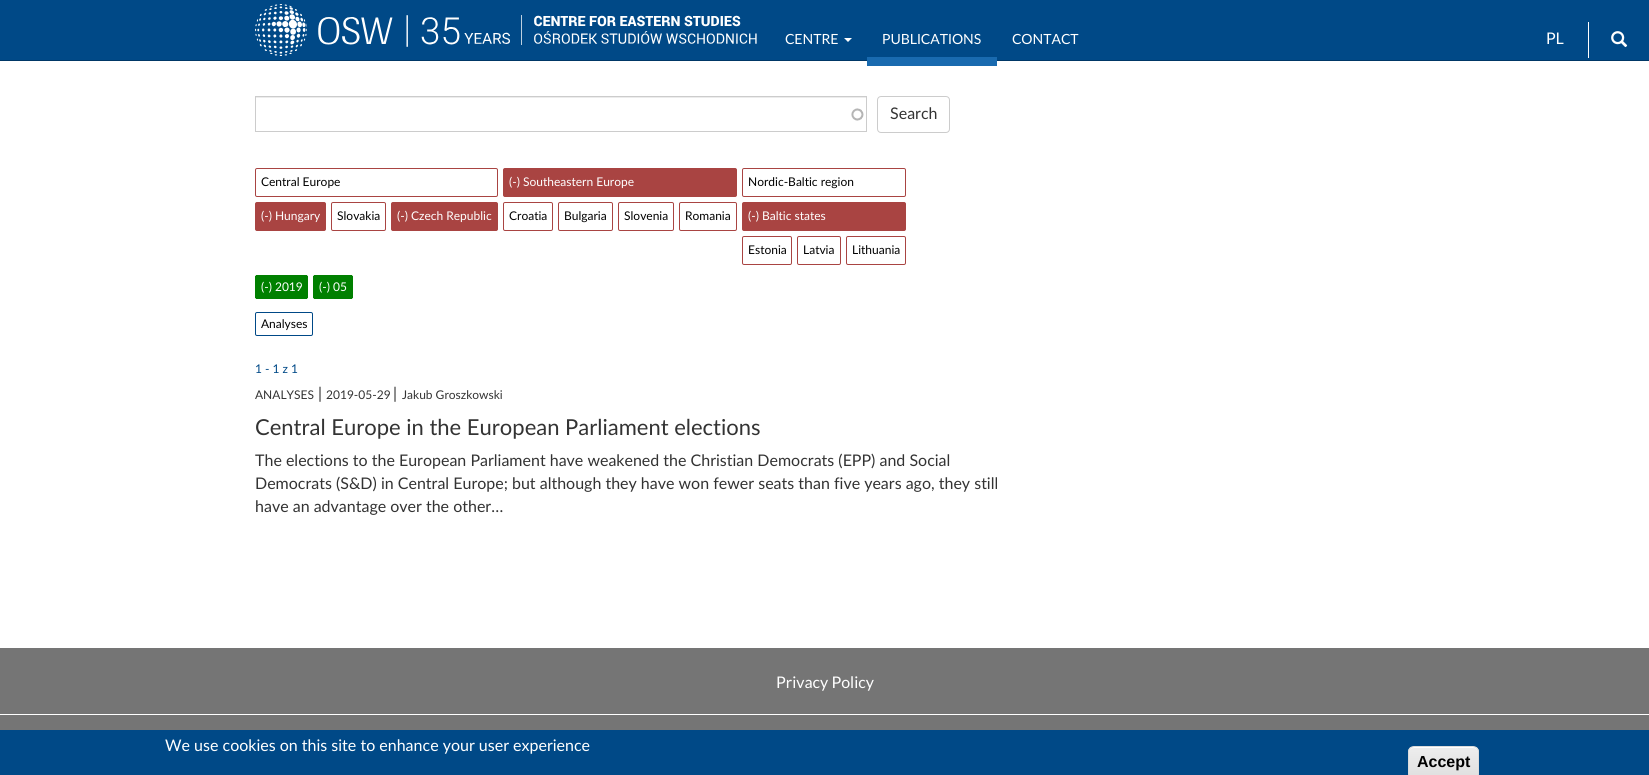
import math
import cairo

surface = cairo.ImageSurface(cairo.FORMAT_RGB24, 1649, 775)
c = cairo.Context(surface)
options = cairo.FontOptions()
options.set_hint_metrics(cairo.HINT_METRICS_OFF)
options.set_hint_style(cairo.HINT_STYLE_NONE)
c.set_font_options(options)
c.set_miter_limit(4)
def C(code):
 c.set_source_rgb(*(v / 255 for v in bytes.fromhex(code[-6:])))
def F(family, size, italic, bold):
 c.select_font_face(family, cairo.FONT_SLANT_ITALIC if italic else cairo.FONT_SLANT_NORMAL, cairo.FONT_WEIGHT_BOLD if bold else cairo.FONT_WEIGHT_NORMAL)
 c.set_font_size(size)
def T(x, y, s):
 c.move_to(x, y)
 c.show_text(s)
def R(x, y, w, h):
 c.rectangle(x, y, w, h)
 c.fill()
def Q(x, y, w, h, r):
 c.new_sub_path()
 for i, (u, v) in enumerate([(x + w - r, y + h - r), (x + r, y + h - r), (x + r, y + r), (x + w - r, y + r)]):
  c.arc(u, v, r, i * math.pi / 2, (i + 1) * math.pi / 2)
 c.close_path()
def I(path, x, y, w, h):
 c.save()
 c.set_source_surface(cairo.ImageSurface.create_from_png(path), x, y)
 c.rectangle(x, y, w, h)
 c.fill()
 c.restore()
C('ffffff')
c.paint()
C('004987')
R(0,0,1649,60)
C('003766')
R(0,60,1649,1)
F('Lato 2',14,0,0)
C('ffffff')
T(785,44,'CENTRE')
c.new_path()
c.move_to(844,38)
c.line_to(852,38)
c.line_to(848,42)
c.close_path()
c.fill()
C('196aaf')
R(867,57,130,9)
C('ffffff')
T(882,44,'PUBLICATIONS')
T(1012,44,'CONTACT')
I('1.png',255,4,255,52)
I('2.png',521,15,236,30)
F('Lato 2',16,0,0)
T(1546,44,'PL')
R(1588,22,1,36)
I('3.png',1611,31,17,17)
I('4.png',851,108,13,13)
C('ececec')
R(256,97,610,1)
c.rectangle(255.5,96.5,611,35)
C('cccccc')
c.set_line_width(1)
c.stroke()
Q(877.5,96.5,72,36,3.5)
c.stroke()
C('333333')
T(890,119,'Search')
Q(255.5,168.5,242,28,1.5)
C('a94442')
c.stroke()
F('Lato 2',12,0,0)
C('000000')
T(261,186,'Central Europe')
C('a94442')
Q(255.5,202.5,70,28,1.5)
c.fill_preserve()
c.stroke()
C('ffffff')
T(261,220,'(-) Hungary')
Q(331.5,202.5,54,28,1.5)
C('a94442')
c.stroke()
C('000000')
T(337,220,'Slovakia')
C('a94442')
Q(391.5,202.5,106,28,1.5)
c.fill_preserve()
c.stroke()
C('ffffff')
T(397,220,'(-) Czech Republic')
C('a94442')
Q(503.5,168.5,233,28,1.5)
c.fill_preserve()
c.stroke()
C('ffffff')
T(509,186,'(-) Southeastern Europe')
Q(503.5,202.5,49,28,1.5)
C('a94442')
c.stroke()
C('000000')
T(509,220,'Croatia')
Q(558.5,202.5,54,28,1.5)
C('a94442')
c.stroke()
C('000000')
T(564,220,'Bulgaria')
Q(618.5,202.5,55,28,1.5)
C('a94442')
c.stroke()
C('000000')
T(624,220,'Slovenia')
Q(679.5,202.5,57,28,1.5)
C('a94442')
c.stroke()
C('000000')
T(685,220,'Romania')
Q(742.5,168.5,163,28,1.5)
C('a94442')
c.stroke()
C('000000')
T(748,186,'Nordic-Baltic region')
C('a94442')
Q(742.5,202.5,163,28,1.5)
c.fill_preserve()
c.stroke()
C('ffffff')
T(748,220,'(-) Baltic states')
Q(742.5,236.5,49,28,1.5)
C('a94442')
c.stroke()
C('000000')
T(748,254,'Estonia')
Q(797.5,236.5,43,28,1.5)
C('a94442')
c.stroke()
C('000000')
T(803,254,'Latvia')
Q(846.5,236.5,59,28,1.5)
C('a94442')
c.stroke()
C('000000')
T(852,254,'Lithuania')
C('008000')
c.new_path()
c.move_to(257,275)
c.line_to(271,275)
c.line_to(271,299)
c.line_to(257,299)
c.curve_to(256,299,255,298,255,297)
c.line_to(255,277)
c.curve_to(255,276,256,275,257,275)
c.close_path()
c.fill()
R(271,275,3,24)
c.new_path()
c.move_to(274,275)
c.line_to(306,275)
c.curve_to(307,275,308,276,308,277)
c.line_to(308,297)
c.curve_to(308,298,307,299,306,299)
c.line_to(274,299)
c.close_path()
c.fill()
C('ffffff')
T(261,291,'(-) 2019')
C('008000')
R(256,275,1,1)
R(256,298,1,1)
R(255,276,1,22)
R(306,275,1,1)
R(307,276,1,22)
R(306,298,1,1)
c.new_path()
c.move_to(315,275)
c.line_to(330,275)
c.line_to(330,299)
c.line_to(315,299)
c.curve_to(314,299,313,298,313,297)
c.line_to(313,277)
c.curve_to(313,276,314,275,315,275)
c.close_path()
c.fill()
R(330,275,3,24)
c.new_path()
c.move_to(333,275)
c.line_to(351,275)
c.curve_to(352,275,353,276,353,277)
c.line_to(353,297)
c.curve_to(353,298,352,299,351,299)
c.line_to(333,299)
c.close_path()
c.fill()
C('ffffff')
T(319,291,'(-) 05')
C('008000')
R(314,275,1,1)
R(314,298,1,1)
R(313,276,1,22)
R(351,275,1,1)
R(352,276,1,22)
R(351,298,1,1)
Q(255.5,312.5,57,23,1.5)
C('004987')
c.stroke()
C('000000')
T(261,328,'Analyses')
C('004987')
T(255,373,'1 - 1 z 1')
C('333333')
T(255,399,'ANALYSES')
F('Lato 2',16,0,0)
T(318,399,'|')
F('Lato 2',12,0,0)
T(326,399,'2019-05-29')
F('Lato 2',16,0,0)
T(393,399,'|')
F('Lato 2',12,0,0)
T(402,399,'Jakub Groszkowski')
F('Lato 2',22,0,0)
T(255,435,'Central Europe in the European Parliament elections')
F('Lato 2',16,0,0)
T(255,466,'The elections to the European Parliament have weakened the Christian Democrats (EPP) and Social')
T(255,489,'Democrats (S&D) in Central Europe; but although they have won fewer seats than five years ago, they still')
T(255,512,'have an advantage over the other…')
C('757575')
R(0,648,1649,82)
F('Lato',16,0,0)
C('ffffff')
T(776,688,'Privacy Policy')
R(0,714,1649,1)
C('004987')
R(0,730,1649,45)
F('Lato 2',16,0,0)
C('ffffff')
T(165,751,'We use cookies on this site to enhance your user experience')
c.save()
Q(1408,746,71,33,6)
c.clip()
gradient = cairo.LinearGradient(1444,747,1444,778)
gradient.add_color_stop_rgba(.05,0.929,0.929,0.929,1)
gradient.add_color_stop_rgba(1,0.875,0.875,0.875,1)
c.set_source(gradient)
R(1408,747,71,28)
c.restore()
c.new_path()
c.move_to(1414,748)
c.line_to(1473,748)
c.curve_to(1476,748,1478,750,1478,753)
c.curve_to(1478,745,1469,747,1463,747)
c.line_to(1424,747)
c.curve_to(1418,747,1409,745,1409,753)
c.curve_to(1409,750,1411,748,1414,748)
c.close_path()
c.fill()
Q(1408.5,746.5,70,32,5.5)
C('dcdcdc')
c.stroke()
F('Liberation Sans',16,0,1)
C('000000')
T(1417,767,'Accept')
surface.write_to_png('o.png')
